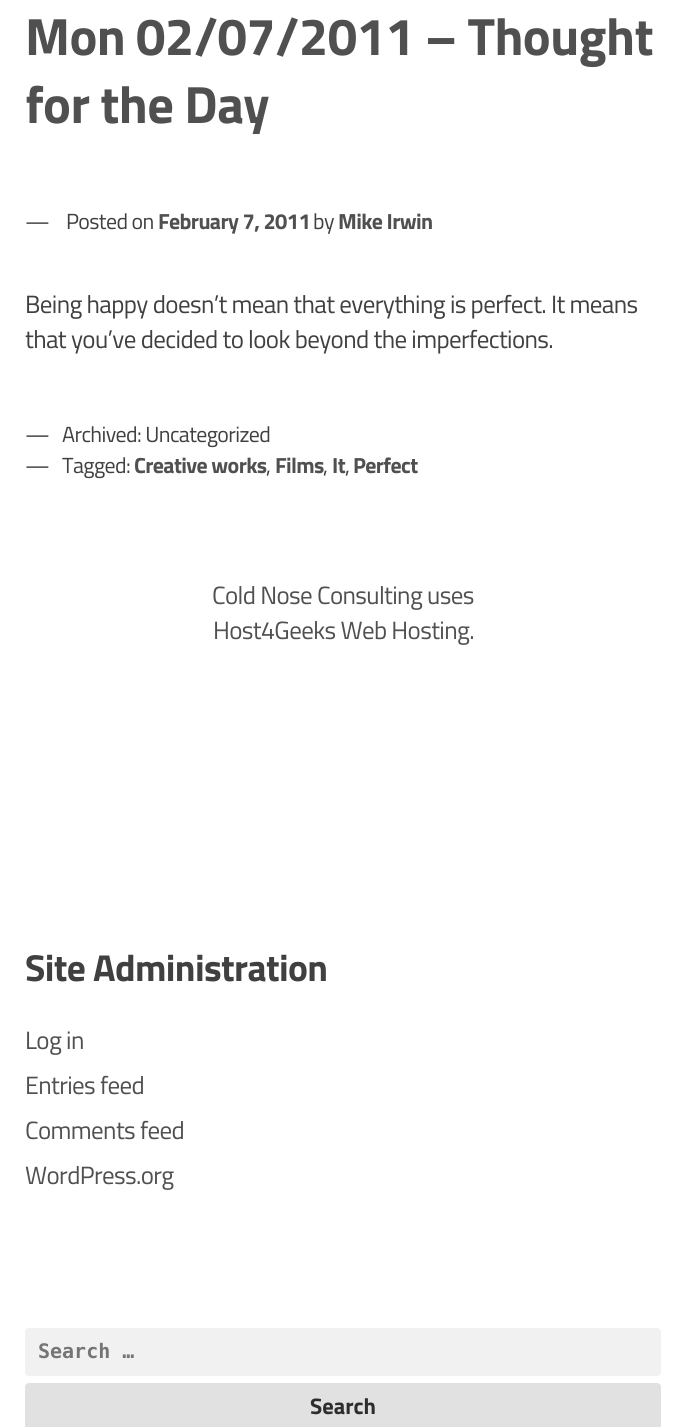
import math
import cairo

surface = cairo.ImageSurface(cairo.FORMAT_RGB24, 686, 1427)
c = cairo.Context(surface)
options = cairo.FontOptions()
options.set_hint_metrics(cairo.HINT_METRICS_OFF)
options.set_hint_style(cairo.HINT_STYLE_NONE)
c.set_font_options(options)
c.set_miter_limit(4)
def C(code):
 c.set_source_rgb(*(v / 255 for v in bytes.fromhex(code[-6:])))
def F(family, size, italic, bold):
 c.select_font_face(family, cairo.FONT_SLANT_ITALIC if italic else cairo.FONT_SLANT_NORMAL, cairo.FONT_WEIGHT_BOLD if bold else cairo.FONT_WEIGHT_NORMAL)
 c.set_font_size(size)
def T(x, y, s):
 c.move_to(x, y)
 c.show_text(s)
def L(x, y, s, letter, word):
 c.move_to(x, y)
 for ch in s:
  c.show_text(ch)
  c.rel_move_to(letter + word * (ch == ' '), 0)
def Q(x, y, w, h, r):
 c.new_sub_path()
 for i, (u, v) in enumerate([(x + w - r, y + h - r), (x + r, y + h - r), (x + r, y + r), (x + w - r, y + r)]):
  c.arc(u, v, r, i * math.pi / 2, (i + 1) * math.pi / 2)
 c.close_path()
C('ffffff')
c.paint()
F('Titillium Web',52.5,0,1)
C('505050')
L(25,55,'Mon 02/07/2011 – Thought',-.62,0)
L(25,123,'for the Day',-.62,0)
F('Titillium Web',21.9,0,0)
C('404040')
L(25,229,'—',-.62,0)
L(66,229,'Posted on',-.62,0)
F('Titillium Web',21.9,0,1)
C('505050')
L(158,229,'February 7, 2011',-.62,0)
F('Titillium Web',21.9,0,0)
C('404040')
L(313,229,'by',-.62,0)
F('Titillium Web',21.9,0,1)
C('505050')
L(338,229,'Mike Irwin',-.62,0)
F('Titillium Web',25,0,0)
C('404040')
L(25,313,'Being happy doesn’t mean that everything is perfect. It means',-.62,0)
L(25,348,'that you’ve decided to look beyond the imperfections.',-.62,0)
F('Titillium Web',21.9,0,0)
L(25,442,'—',-.62,0)
L(62,442,'Archived: Uncategorized',-.62,0)
L(25,473,'—',-.62,0)
L(62,473,'Tagged:',-.62,0)
F('Titillium Web',21.9,0,1)
C('505050')
L(134,473,'Creative works',-.62,0)
L(275,473,'Films',-.62,0)
L(332,473,'It',-.62,0)
L(353,473,'Perfect',-.62,0)
F('Titillium Web',21.9,0,0)
C('404040')
L(266,473,',',-.62,0)
L(323,473,',',-.62,0)
L(345,473,',',-.62,0)
F('Titillium Web',25,0,0)
C('505050')
L(212,604,'Cold Nose Consulting uses',-.62,0)
L(213,639,'Host4Geeks Web Hosting.',-.62,0)
F('Titillium Web',37.5,0,1)
C('404040')
L(25,981,'Site Administration',-.62,0)
F('Titillium Web',25,0,0)
C('505050')
L(25,1049,'Log in',-.62,0)
L(25,1094,'Entries feed',-.62,0)
L(25,1139,'Comments feed',-.62,0)
L(25,1184,'WordPress.org',-.62,0)
C('f1f1f1')
Q(25,1328,636,48,4)
c.fill()
F('DejaVu Sans Mono',20,0,1)
C('757575')
T(38,1358,'Search …')
C('e1e1e1')
Q(25,1383,636,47,4)
c.fill()
F('Titillium Web',22.5,0,1)
C('2d2d2d')
T(310,1414,'Search')
surface.write_to_png('o.png')
